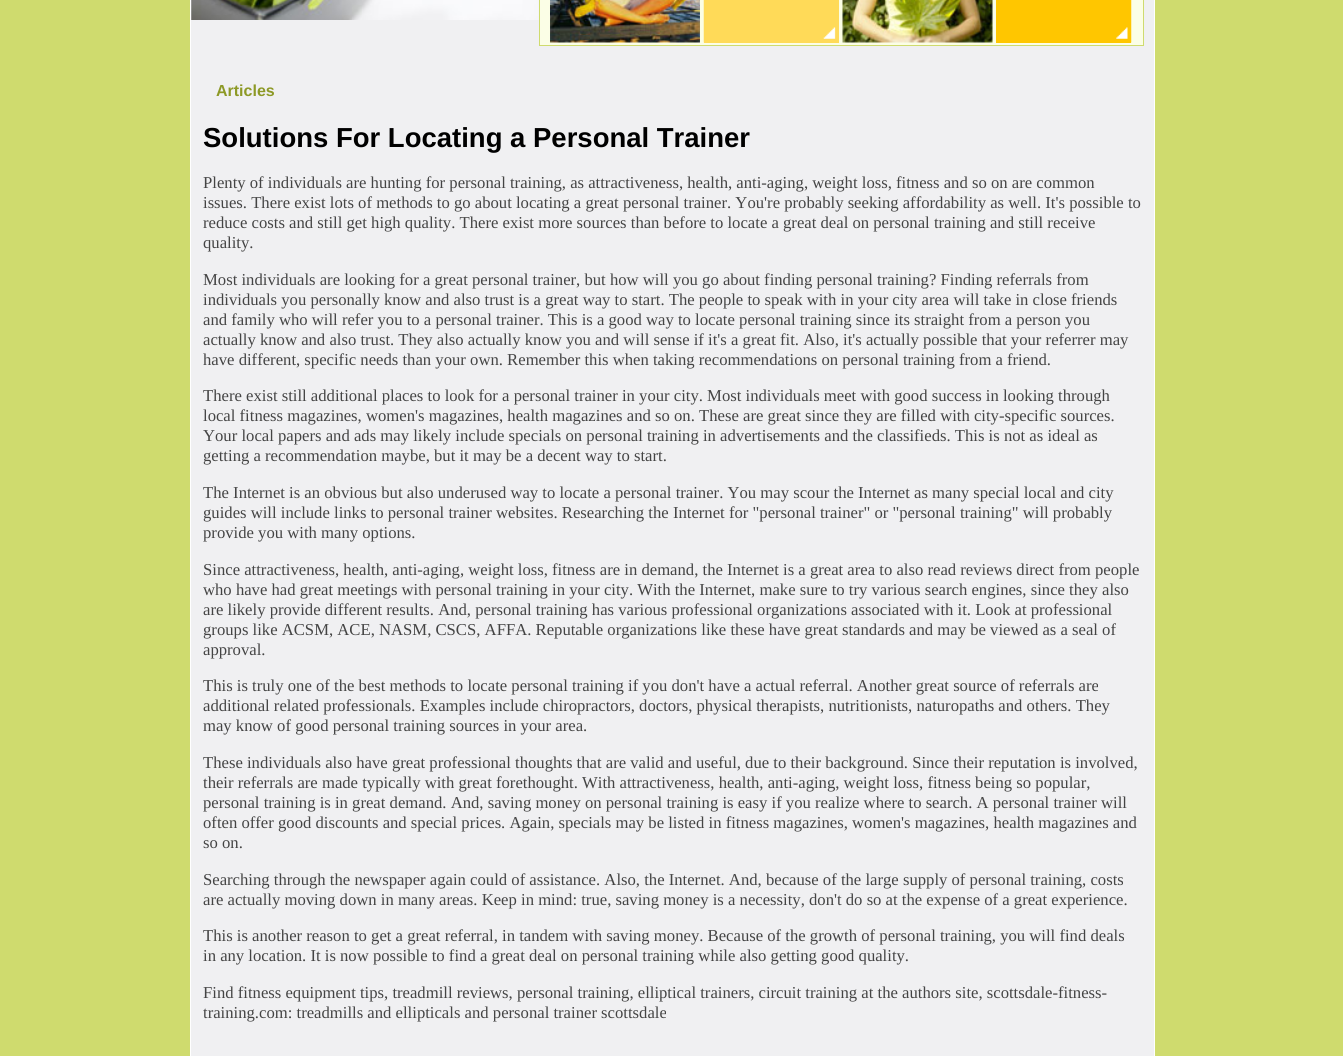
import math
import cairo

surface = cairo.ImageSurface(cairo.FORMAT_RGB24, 1343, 1056)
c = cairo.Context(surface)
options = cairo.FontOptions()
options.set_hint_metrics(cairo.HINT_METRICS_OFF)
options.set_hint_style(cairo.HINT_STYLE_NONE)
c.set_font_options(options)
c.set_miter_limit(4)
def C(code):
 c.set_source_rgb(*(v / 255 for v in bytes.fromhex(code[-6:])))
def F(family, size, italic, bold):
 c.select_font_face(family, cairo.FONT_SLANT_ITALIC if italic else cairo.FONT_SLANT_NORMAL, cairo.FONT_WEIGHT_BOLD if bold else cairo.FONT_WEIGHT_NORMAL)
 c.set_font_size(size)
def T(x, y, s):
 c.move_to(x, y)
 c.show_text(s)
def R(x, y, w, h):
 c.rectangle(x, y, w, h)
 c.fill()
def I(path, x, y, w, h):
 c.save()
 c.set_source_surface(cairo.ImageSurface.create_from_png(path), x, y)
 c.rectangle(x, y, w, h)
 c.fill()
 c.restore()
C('cfdb6e')
c.paint()
C('f0f0f2')
R(191,0,963,1056)
C('ffffff')
R(1154,0,1,1056)
R(190,0,1,1056)
I('1.png',191,0,348,20)
C('fbfee6')
c.rectangle(539.5,-.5,604,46)
c.fill_preserve()
C('cfdb6e')
c.set_line_width(1)
c.stroke()
I('2.png',550,0,150,43)
C('ffda58')
R(704,0,135,43)
I('3.png',703,0,133,43)
I('4.png',842,0,151,43)
C('ffc600')
R(996,0,135,43)
I('5.png',1116,0,16,43)
F('Liberation Sans',16,0,1)
C('8d9926')
T(216,96,'Articles')
F('Liberation Sans',27.5,0,1)
C('000000')
T(203,147,'Solutions For Locating a Personal Trainer')
F('Liberation Serif',16.67,0,0)
C('444444')
T(203,188,'Plenty of individuals are hunting for personal training, as attractiveness, health, anti-aging, weight loss, fitness and so on are common')
T(203,208,'issues. There exist lots of methods to go about locating a great personal trainer. You\'re probably seeking affordability as well. It\'s possible to')
T(203,228,'reduce costs and still get high quality. There exist more sources than before to locate a great deal on personal training and still receive')
T(203,248,'quality.')
T(203,285,'Most individuals are looking for a great personal trainer, but how will you go about finding personal training? Finding referrals from')
T(203,305,'individuals you personally know and also trust is a great way to start. The people to speak with in your city area will take in close friends')
T(203,325,'and family who will refer you to a personal trainer. This is a good way to locate personal training since its straight from a person you')
T(203,345,'actually know and also trust. They also actually know you and will sense if it\'s a great fit. Also, it\'s actually possible that your referrer may')
T(203,365,'have different, specific needs than your own. Remember this when taking recommendations on personal training from a')
T(1007,365,'friend.')
T(203,401,'There exist still additional places to look for a personal trainer in your city. Most individuals meet with good success in looking through')
T(203,421,'local fitness magazines, women\'s magazines, health magazines and so on. These are great since they are filled with city-specific sources.')
T(203,441,'Your local papers and ads may likely include specials on personal training in advertisements and the classifieds. This is not as ideal as')
T(203,461,'getting a recommendation maybe, but it may be a decent way to start.')
T(203,498,'The Internet is an obvious but also underused way to locate a personal trainer. You may scour the Internet as many special local and city')
T(203,518,'guides will include links to personal trainer websites. Researching the Internet for "personal trainer" or "personal training" will probably')
T(203,538,'provide you with many options.')
T(203,575,'Since attractiveness, health, anti-aging, weight loss, fitness are in demand, the Internet is a great area to also read reviews direct from people')
T(203,595,'who have had great meetings with personal training in your city. With the Internet, make sure to try various search engines, since they also')
T(203,615,'are likely provide different results. And, personal training has various professional organizations associated with it. Look at professional')
T(203,635,'groups like ACSM, ACE, NASM, CSCS, AFFA. Reputable organizations like these have great standards and may be viewed as a seal of')
T(203,655,'approval.')
T(203,691,'This is truly one of the best methods to locate personal training if you don\'t have a actual referral. Another great source of referrals are')
T(203,711,'additional related professionals. Examples include chiropractors, doctors, physical therapists, nutritionists, naturopaths and others. They')
T(203,731,'may know of good personal training sources in your area.')
T(203,768,'These individuals also have great professional thoughts that are valid and useful, due to their background. Since their reputation is involved,')
T(203,788,'their referrals are made typically with great forethought. With attractiveness, health, anti-aging, weight loss, fitness being so popular,')
T(203,808,'personal training is in great demand. And, saving money on personal training is easy if you realize where to search. A personal trainer will')
T(203,828,'often offer good discounts and special prices. Again, specials may be listed in fitness magazines, women\'s magazines, health magazines and')
T(203,848,'so on.')
T(203,885,'Searching through the newspaper again could of assistance. Also, the Internet. And, because of the large supply of personal training, costs')
T(203,905,'are actually moving down in many areas. Keep in mind: true, saving money is a necessity, don\'t do so at the expense of a great experience.')
T(203,941,'This is another reason to get a great referral, in tandem with saving money. Because of the growth of personal training, you will find deals')
T(203,961,'in any location. It is now possible to find a great deal on personal training while also getting good quality.')
T(203,998,'Find fitness equipment tips, treadmill reviews, personal training, elliptical trainers, circuit training at the authors site, scottsdale-fitness-')
T(203,1018,'training.com: treadmills and ellipticals and personal trainer scottsdale')
surface.write_to_png('o.png')
